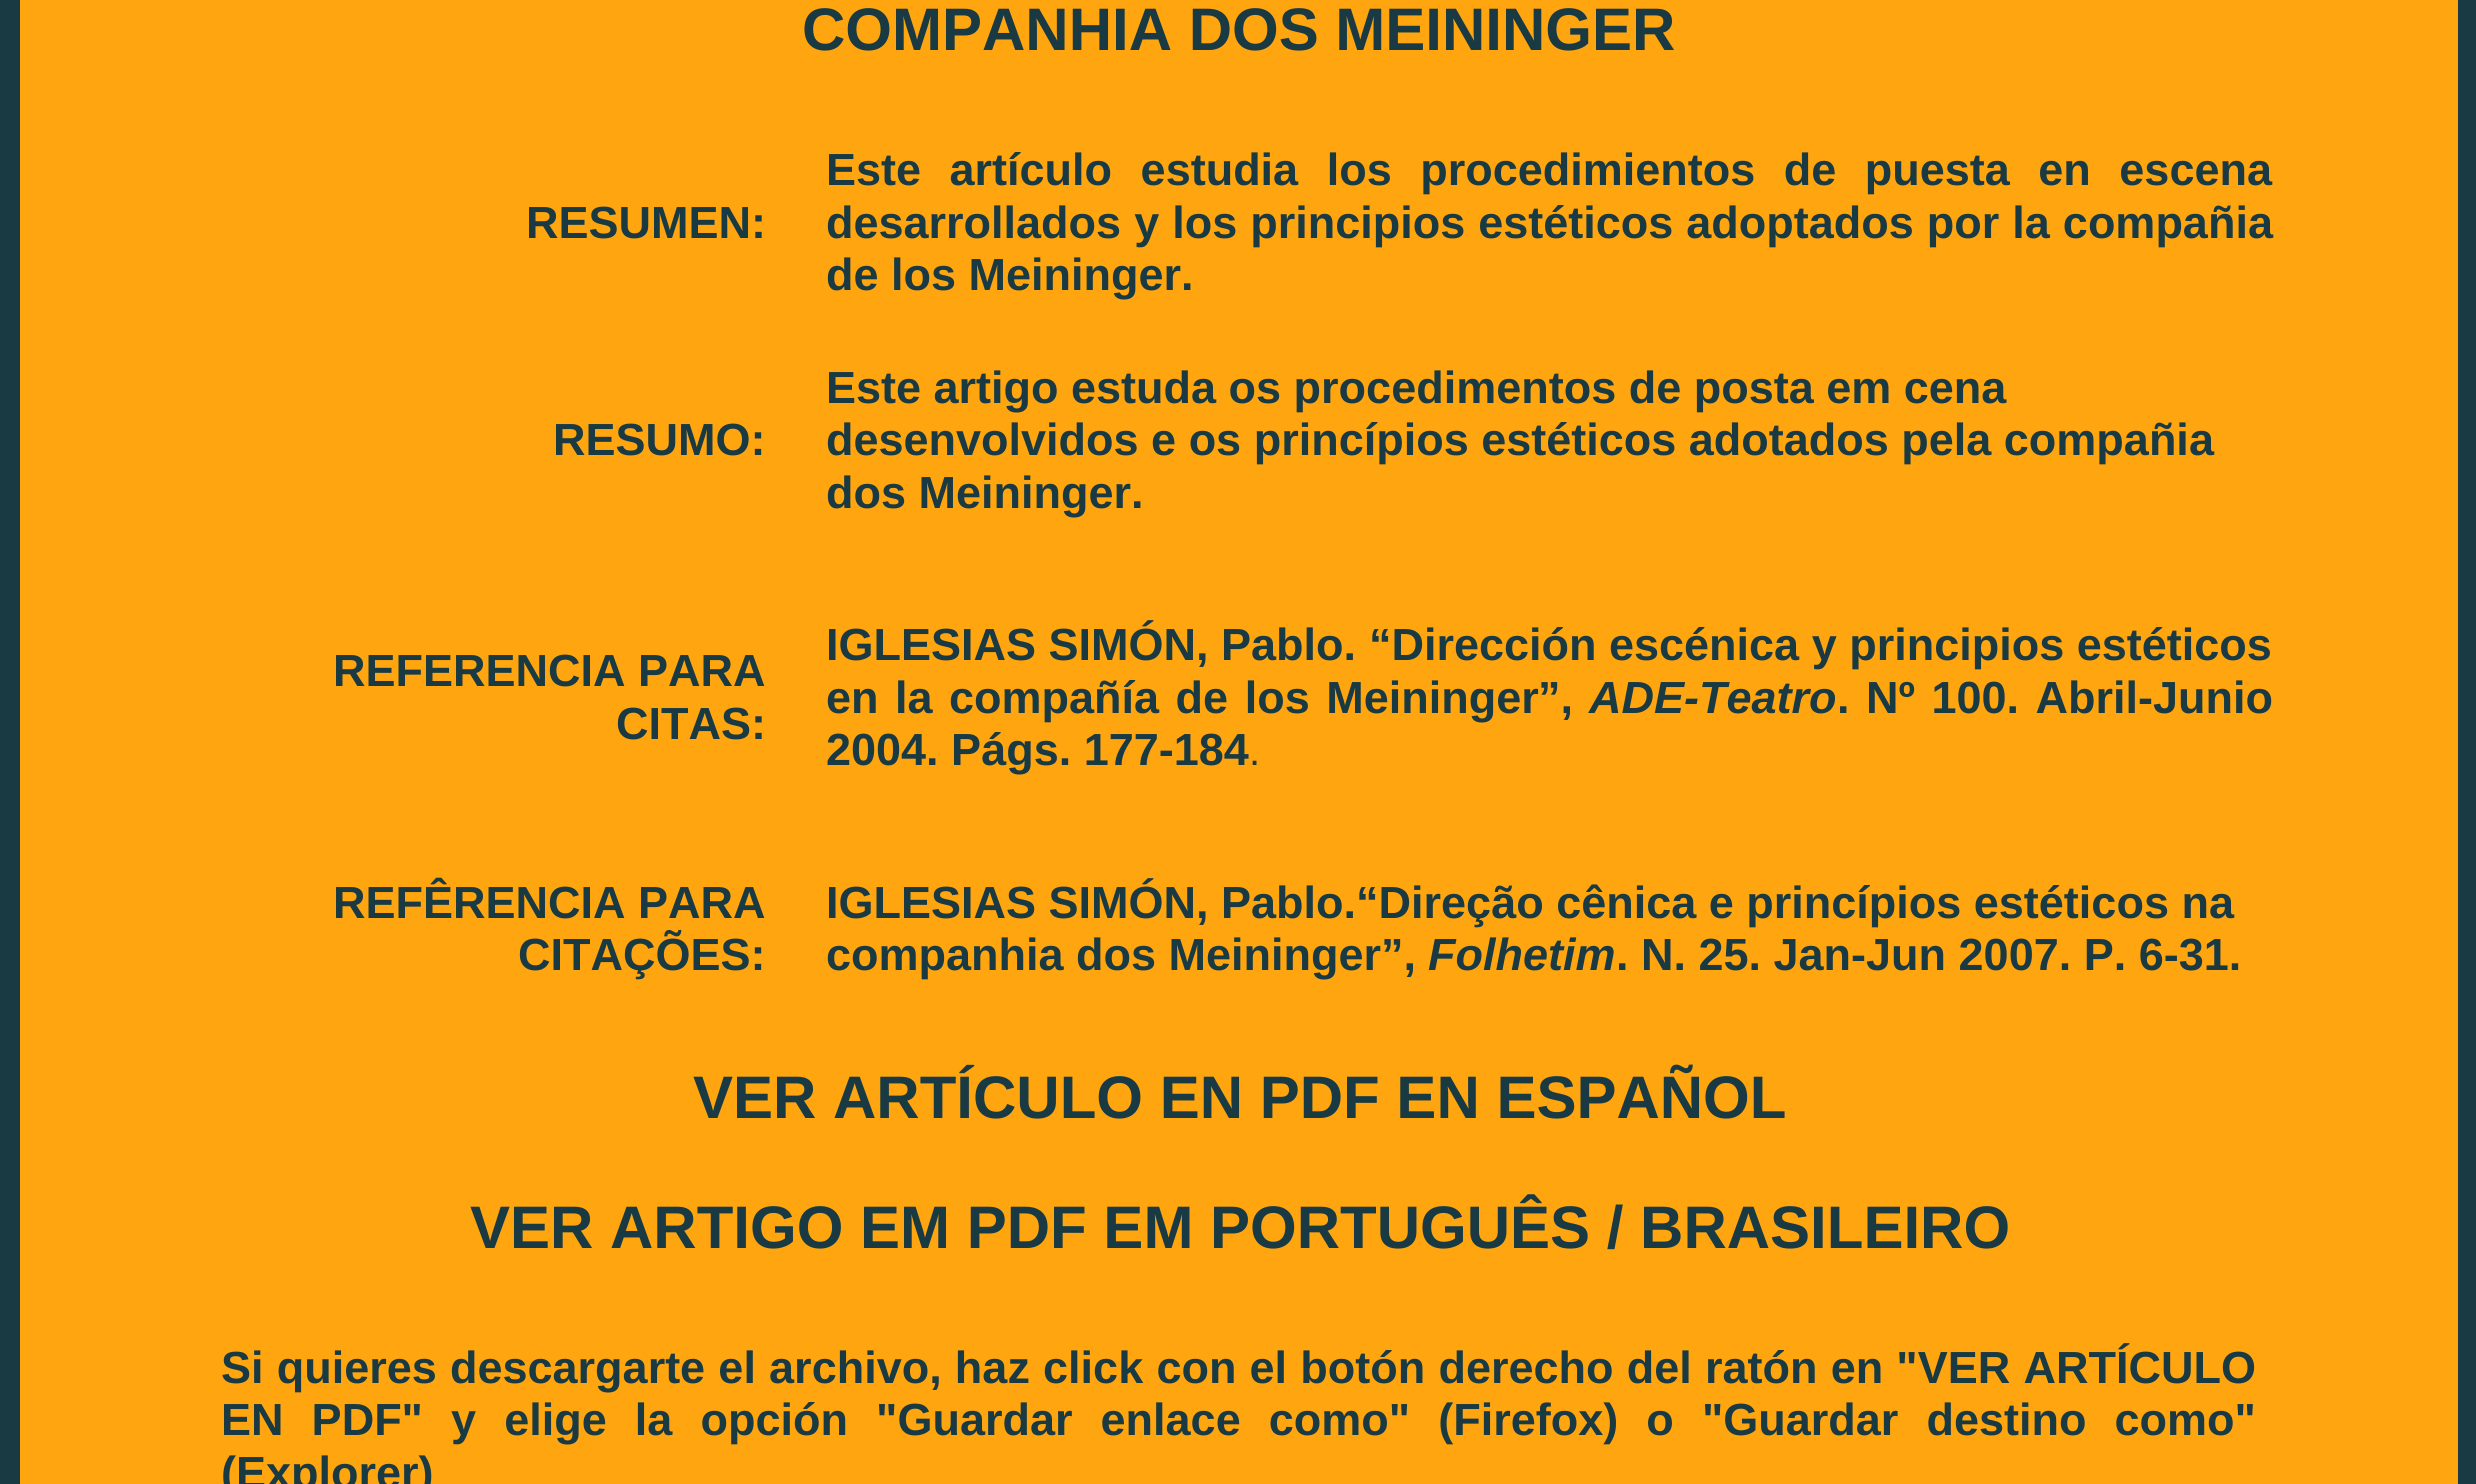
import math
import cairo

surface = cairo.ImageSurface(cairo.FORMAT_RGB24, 2476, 1484)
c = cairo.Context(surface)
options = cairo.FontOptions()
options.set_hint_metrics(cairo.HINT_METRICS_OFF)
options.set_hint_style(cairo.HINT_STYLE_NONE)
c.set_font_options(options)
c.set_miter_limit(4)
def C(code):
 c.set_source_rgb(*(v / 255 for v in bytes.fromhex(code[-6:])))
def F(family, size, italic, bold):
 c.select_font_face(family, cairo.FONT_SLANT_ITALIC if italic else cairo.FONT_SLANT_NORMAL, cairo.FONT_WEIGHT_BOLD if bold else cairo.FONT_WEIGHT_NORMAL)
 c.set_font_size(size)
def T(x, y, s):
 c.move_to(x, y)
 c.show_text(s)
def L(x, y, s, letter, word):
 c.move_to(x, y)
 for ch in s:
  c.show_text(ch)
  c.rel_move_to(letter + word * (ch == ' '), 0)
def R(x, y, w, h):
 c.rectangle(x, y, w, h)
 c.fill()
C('193a42')
c.paint()
C('ffa510')
R(20,0,2438,1484)
F('Liberation Sans',60,0,1)
C('193a42')
T(802,50,'COMPANHIA DOS MEININGER')
F('Liberation Sans',45,0,1)
T(526,238,'RESUMEN:')
L(826,185,'Este artículo estudia los procedimientos de puesta en escena',0,16)
L(826,238,'desarrollados y los principios estéticos adoptados por la compañia',0,.5)
T(826,290,'de los Meininger.')
T(553,455,'RESUMO:')
T(826,403,'Este artigo estuda os procedimentos de posta em cena')
T(826,455,'desenvolvidos e os princípios estéticos adotados pela compañia')
T(826,508,'dos Meininger.')
T(333,686,'REFERENCIA PARA')
T(616,739,'CITAS:')
T(826,660,'IGLESIAS SIMÓN, Pablo.')
T(1369,660,'“Dirección')
T(1609,660,'escénica y principios estéticos')
L(826,713,'en la compañía de los Meininger',0,4)
T(1538,713,'”,')
F('Liberation Sans',45,1,1)
T(1589,713,'ADE-Teatro')
F('Liberation Sans',45,0,1)
L(1837,713,'. Nº 100. Abril-Junio',0,4)
T(826,765,'2004. Págs. 177-184')
F('Liberation Sans',40,0,0)
T(1249,765,'.')
F('Liberation Sans',45,0,1)
T(333,918,'REFÊRENCIA PARA')
T(518,970,'CITAÇÕES:')
T(826,918,'IGLESIAS SIMÓN, Pablo.“Direção cênica e princípios estéticos na')
T(826,970,'companhia dos Meininger”,')
F('Liberation Sans',45,1,1)
T(1428,970,'Folhetim')
F('Liberation Sans',45,0,1)
T(1616,970,'. N. 25. Jan-Jun 2007. P. 6-31.')
F('Liberation Sans',60,0,1)
T(693,1118,'VER ARTÍCULO EN PDF EN ESPAÑOL')
T(470,1248,'VER ARTIGO EM PDF EM PORTUGUÊS / BRASILEIRO')
F('Liberation Sans',45,0,1)
L(221,1383,'Si quieres descargarte el archivo, haz click con el botón derecho del ratón en "VER ARTÍCULO',0,.7)
L(221,1435,'EN PDF" y elige la opción "Guardar enlace como" (Firefox) o "Guardar destino como"',0,15.6)
T(221,1488,'(Explorer)')
surface.write_to_png('o.png')
